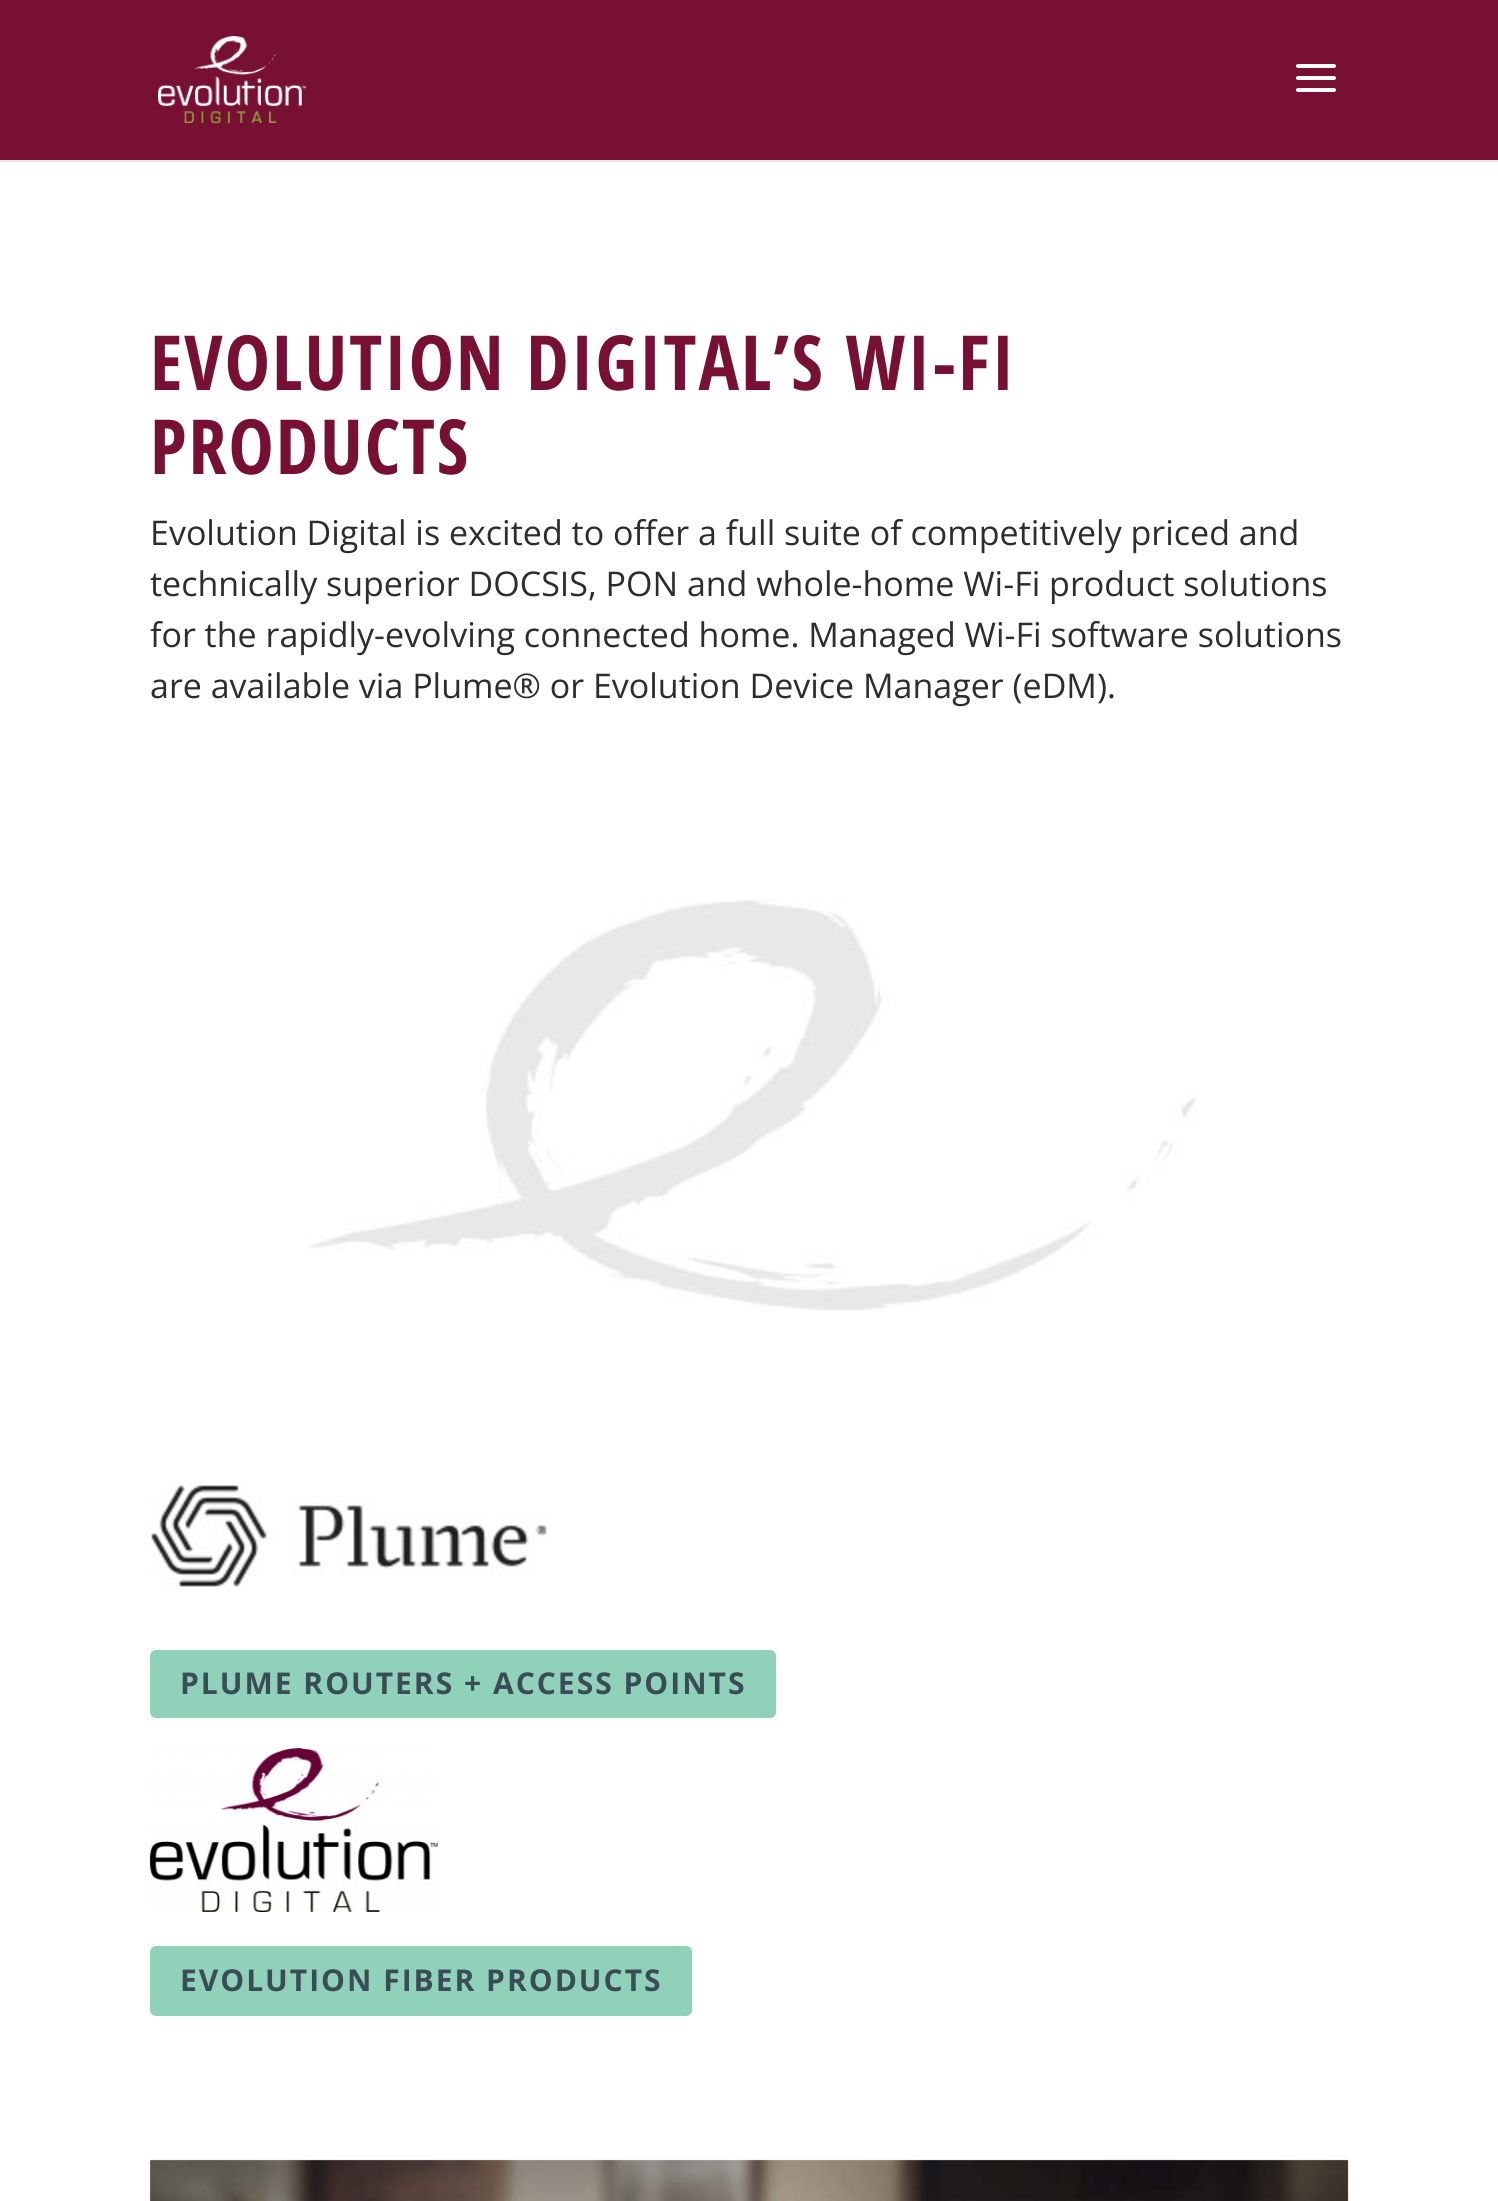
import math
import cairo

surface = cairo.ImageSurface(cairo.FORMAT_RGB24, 1498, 2201)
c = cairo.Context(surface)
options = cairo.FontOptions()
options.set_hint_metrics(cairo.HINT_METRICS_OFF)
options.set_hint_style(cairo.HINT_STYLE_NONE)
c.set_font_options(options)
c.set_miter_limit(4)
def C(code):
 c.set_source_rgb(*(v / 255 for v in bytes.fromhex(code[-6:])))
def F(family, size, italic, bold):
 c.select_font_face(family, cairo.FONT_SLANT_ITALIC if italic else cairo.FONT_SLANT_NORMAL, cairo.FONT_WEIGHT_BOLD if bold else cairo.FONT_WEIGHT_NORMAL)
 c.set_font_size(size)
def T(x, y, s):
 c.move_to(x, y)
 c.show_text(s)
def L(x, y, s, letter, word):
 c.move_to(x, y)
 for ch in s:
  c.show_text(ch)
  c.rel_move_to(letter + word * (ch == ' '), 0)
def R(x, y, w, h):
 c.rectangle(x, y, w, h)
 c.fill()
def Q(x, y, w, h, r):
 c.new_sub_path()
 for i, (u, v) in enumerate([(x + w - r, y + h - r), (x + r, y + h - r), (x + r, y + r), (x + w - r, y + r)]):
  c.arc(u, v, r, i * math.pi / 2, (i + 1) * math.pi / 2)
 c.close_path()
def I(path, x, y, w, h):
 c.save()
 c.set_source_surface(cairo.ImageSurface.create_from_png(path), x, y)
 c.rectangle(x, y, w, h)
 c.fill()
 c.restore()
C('ffffff')
c.paint()
C('e6e6e6')
R(0,160,1498,2)
C('781033')
R(0,0,1498,160)
I('1.png',158,36,148,87)
I('2.png',1296,64,40,28)
F('Open Sans Condensed',76,0,1)
L(150,390,'EVOLUTION DIGITAL’S WI-FI',2,0)
L(150,474,'PRODUCTS',2,0)
F('Open Sans',34,0,0)
C('2d2d2d')
T(150,545,'Evolution Digital is excited to offer a full suite of competitively priced and')
T(150,596,'technically superior DOCSIS, PON and whole-home Wi-Fi product solutions')
T(150,647,'for the rapidly-evolving connected home. Managed Wi-Fi software solutions')
T(150,698,'are available via Plume® or Evolution Device Manager (eDM).')
I('3.png',308,899,889,412)
I('4.png',151,1484,396,106)
C('90d1ba')
Q(150,1650,626,68,6)
c.fill()
F('Open Sans',30,0,1)
C('3a4c55')
L(180,1694,'PLUME ROUTERS + ACCESS POINTS',2,0)
I('5.png',149,1748,289,164)
C('90d1ba')
Q(150,1946,542,70,6)
c.fill()
C('3a4c55')
L(180,1991,'EVOLUTION FIBER PRODUCTS',2,0)
I('6.png',149,2159,1200,42)
surface.write_to_png('o.png')
